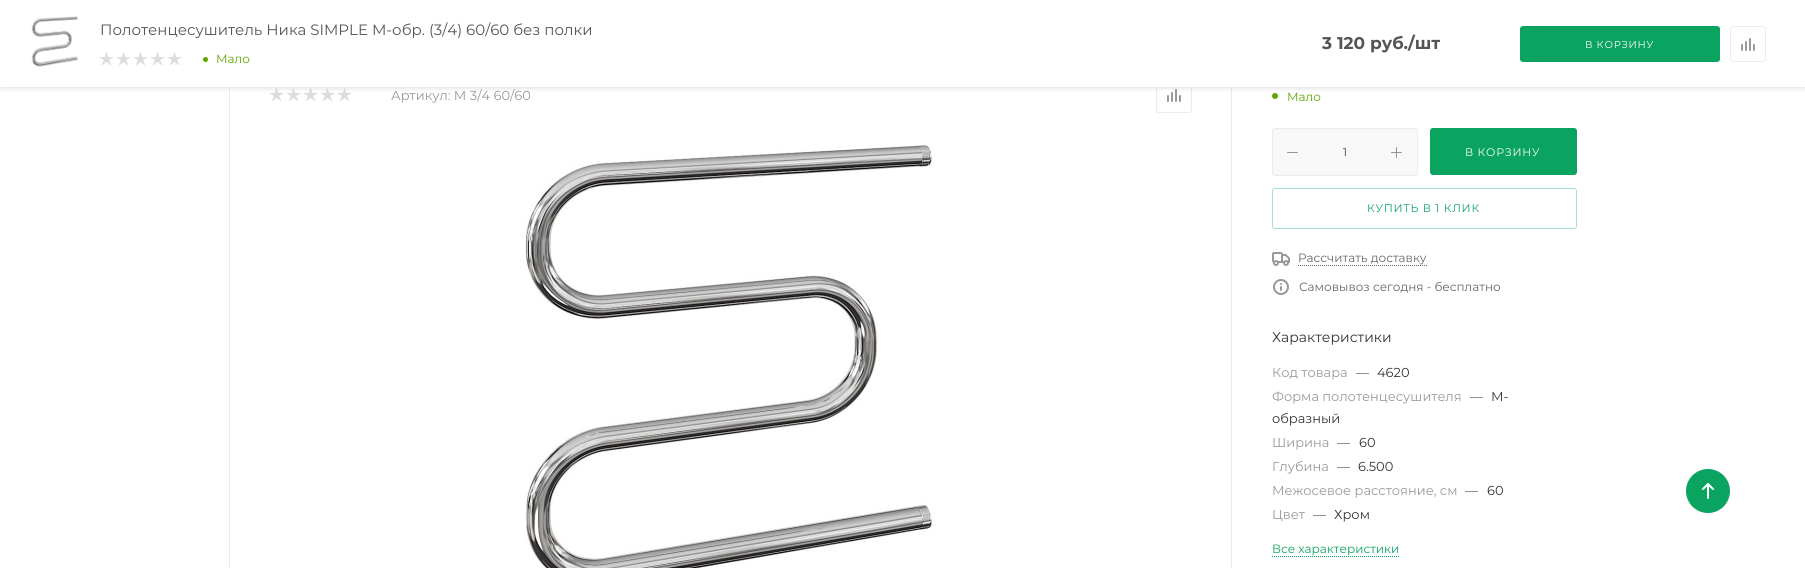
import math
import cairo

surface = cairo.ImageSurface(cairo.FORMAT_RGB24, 1805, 568)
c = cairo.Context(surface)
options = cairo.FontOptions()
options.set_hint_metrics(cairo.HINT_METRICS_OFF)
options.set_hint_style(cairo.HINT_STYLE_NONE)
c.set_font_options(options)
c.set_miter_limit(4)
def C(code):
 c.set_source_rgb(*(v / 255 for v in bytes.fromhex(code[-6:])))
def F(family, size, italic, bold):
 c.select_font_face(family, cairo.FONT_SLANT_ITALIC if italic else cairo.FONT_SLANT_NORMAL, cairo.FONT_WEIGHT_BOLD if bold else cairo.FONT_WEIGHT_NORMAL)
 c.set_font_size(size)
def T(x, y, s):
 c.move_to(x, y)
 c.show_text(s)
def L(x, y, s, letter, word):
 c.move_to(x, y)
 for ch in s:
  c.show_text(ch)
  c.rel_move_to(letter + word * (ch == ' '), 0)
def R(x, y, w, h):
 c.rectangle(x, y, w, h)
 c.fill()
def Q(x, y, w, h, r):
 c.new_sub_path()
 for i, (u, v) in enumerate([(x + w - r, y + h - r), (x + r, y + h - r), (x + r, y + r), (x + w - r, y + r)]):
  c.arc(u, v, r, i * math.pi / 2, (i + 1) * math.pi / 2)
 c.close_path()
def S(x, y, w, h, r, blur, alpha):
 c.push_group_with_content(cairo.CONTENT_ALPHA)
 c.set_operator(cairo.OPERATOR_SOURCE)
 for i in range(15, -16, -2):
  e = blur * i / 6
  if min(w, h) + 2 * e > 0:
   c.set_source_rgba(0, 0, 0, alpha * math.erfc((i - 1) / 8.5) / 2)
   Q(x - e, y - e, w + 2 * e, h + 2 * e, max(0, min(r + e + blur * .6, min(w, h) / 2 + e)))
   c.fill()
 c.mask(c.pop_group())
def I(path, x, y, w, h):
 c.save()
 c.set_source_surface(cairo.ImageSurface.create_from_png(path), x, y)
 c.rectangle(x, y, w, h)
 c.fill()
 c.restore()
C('ffffff')
c.paint()
c.rectangle(229.5,44.5,1002,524)
C('ececec')
c.set_line_width(1)
c.stroke()
I('2.png',269,88,15,13)
I('2.png',286,88,15,13)
I('2.png',303,88,15,13)
I('2.png',320,88,15,13)
I('2.png',337,88,15,13)
Q(1156.5,77.5,35,35,2.5)
c.stroke()
I('3.png',1167,89,14,13)
C('5fa800')
c.arc(1275,96,3,0,2 * math.pi)
c.fill()
C('000000')
S(0,1,1805,87,0,2.5,.14)
C('ffffff')
R(0,0,1805,87)
I('1.png',31,16,48,51)
F('Montserrat',15,0,0)
C('555555')
T(100,35,'Полотенцесушитель Ника SIMPLE М-обр. (3/4) 60/60 без полки')
I('2.png',99,52,15,13)
I('2.png',116,52,15,13)
I('2.png',133,52,15,13)
I('2.png',150,52,15,13)
I('2.png',167,52,15,13)
C('5fa800')
c.arc(205.5,59.5,2.5,0,2 * math.pi)
c.fill()
F('Montserrat',12,0,0)
T(216,63,'Мало')
F('Montserrat',17,0,1)
C('555555')
T(1322,49,'3 120 руб./шт')
C('0aa360')
Q(1520.5,26.5,199,35,2.5)
c.fill_preserve()
c.stroke()
F('Montserrat',10,0,0)
C('ffffff')
L(1585,48,'В КОРЗИНУ',.75,0)
Q(1730.5,26.5,35,35,2.5)
C('ececec')
c.stroke()
I('3.png',1741,38,14,13)
F('Montserrat',13,0,0)
C('999999')
T(391,100,'Артикул: М 3/4 60/60')
I('4.png',525,144,411,424)
F('Montserrat',12,0,0)
C('5fa800')
T(1287,101,'Мало')
C('f8f8f8')
Q(1272.5,128.5,145,47,2.5)
c.fill_preserve()
C('ececec')
c.stroke()
C('969696')
Q(1287,152,11,1,.5)
c.fill()
F('Montserrat',11,0,0)
C('333333')
T(1343,156,'1')
I('5.png',1391,147,11,11)
C('0aa360')
Q(1430.5,128.5,146,46,2.5)
c.fill_preserve()
c.stroke()
C('ffffff')
L(1465,156,'В КОРЗИНУ',.75,0)
Q(1272.5,188.5,304,40,2.5)
C('a9dfc8')
c.stroke()
C('0aa360')
L(1367,212,'КУПИТЬ В 1 КЛИК',.75,0)
I('6.png',1272,252,18,14)
F('Montserrat',12,0,0)
C('666666')
T(1298,262,'Рассчитать доставку')
c.new_path()
c.move_to(1298,265.5)
c.line_to(1427,265.5)
c.set_dash([1,1])
c.stroke()
I('7.png',1273,279,16,16)
T(1299,291,'Самовывоз сегодня - бесплатно')
F('Montserrat',14,0,0)
C('333333')
T(1272,342,'Характеристики')
F('Montserrat',13,0,0)
C('999999')
T(1272,377,'Код товара')
C('555555')
T(1356,377,'—')
C('333333')
T(1377,377,'4620')
C('999999')
T(1272,401,'Форма полотенцесушителя')
C('555555')
T(1470,401,'—')
C('333333')
T(1491,401,'М-')
T(1272,423,'образный')
C('999999')
T(1272,447,'Ширина')
C('555555')
T(1337,447,'—')
C('333333')
T(1359,447,'60')
C('999999')
T(1272,471,'Глубина')
C('555555')
T(1337,471,'—')
C('333333')
T(1358,471,'6.500')
C('999999')
T(1272,495,'Межосевое расстояние, см')
C('555555')
T(1465,495,'—')
C('333333')
T(1487,495,'60')
C('999999')
T(1272,519,'Цвет')
C('555555')
T(1313,519,'—')
C('333333')
T(1334,519,'Хром')
F('Montserrat',12,0,0)
C('0aa360')
T(1272,553,'Все характеристики')
c.new_path()
c.move_to(1272,556.5)
c.line_to(1399,556.5)
c.stroke()
c.arc(1708,491,22,0,2 * math.pi)
c.fill()
I('8.png',1702,483,12,16)
surface.write_to_png('o.png')
